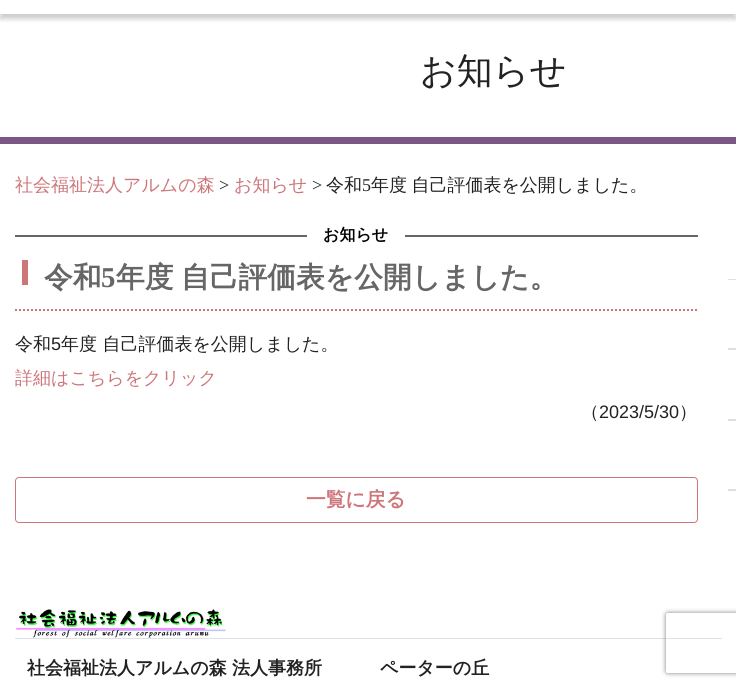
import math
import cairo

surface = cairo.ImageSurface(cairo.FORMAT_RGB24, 736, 687)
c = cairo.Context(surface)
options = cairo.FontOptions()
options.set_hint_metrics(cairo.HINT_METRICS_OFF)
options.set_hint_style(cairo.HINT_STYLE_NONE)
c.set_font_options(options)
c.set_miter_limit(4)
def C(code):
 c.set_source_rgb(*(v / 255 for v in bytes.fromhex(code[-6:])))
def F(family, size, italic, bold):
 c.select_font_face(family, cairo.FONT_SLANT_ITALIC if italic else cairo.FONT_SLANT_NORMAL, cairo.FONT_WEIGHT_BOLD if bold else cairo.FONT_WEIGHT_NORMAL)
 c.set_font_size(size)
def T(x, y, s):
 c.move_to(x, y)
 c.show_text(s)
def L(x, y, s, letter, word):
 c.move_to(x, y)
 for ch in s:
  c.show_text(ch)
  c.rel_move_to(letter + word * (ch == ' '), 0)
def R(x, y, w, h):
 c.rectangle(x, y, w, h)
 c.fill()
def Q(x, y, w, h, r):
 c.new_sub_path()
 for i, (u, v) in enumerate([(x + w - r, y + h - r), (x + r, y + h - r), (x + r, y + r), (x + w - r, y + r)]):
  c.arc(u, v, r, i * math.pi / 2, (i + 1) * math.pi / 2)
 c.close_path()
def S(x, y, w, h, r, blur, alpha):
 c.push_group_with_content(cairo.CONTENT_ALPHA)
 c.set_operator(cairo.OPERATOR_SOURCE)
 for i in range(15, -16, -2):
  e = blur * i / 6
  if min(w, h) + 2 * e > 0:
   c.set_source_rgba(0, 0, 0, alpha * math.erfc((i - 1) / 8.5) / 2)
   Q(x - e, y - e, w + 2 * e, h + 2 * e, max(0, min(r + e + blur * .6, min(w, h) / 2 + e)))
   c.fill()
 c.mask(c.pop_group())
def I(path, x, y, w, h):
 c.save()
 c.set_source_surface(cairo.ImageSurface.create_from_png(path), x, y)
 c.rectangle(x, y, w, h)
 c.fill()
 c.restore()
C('ffffff')
c.paint()
c.save()
c.rectangle(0,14,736,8)
c.clip()
C('000000')
S(0,5,736,14,0,2.5,.2)
c.restore()
C('795886')
R(0,137,736,7)
F('WenQuanYi Zen Hei Medium',36,0,0)
C('222222')
T(420,83,'お知らせ')
F('WenQuanYi Zen Hei Medium',18,0,0)
C('ce7579')
T(15,191,'社会福祉法人アルムの森')
F('Liberation Serif',18,0,0)
C('222222')
T(219,191,'>')
F('WenQuanYi Zen Hei Medium',18,0,0)
C('ce7579')
T(234,191,'お知らせ')
F('Liberation Serif',18,0,0)
C('222222')
T(312,191,'>')
F('WenQuanYi Zen Hei Medium',18,0,0)
T(326,191,'令和')
F('Liberation Serif',18,0,0)
T(362,191,'5')
F('WenQuanYi Zen Hei Medium',18,0,0)
L(371,191,'年度 自己評価表を公開しました。',0,-1)
C('666666')
R(15,235,292,2)
F('WenQuanYi Zen Hei',16,0,1)
C('000000')
T(323,240,'お知らせ')
C('666666')
R(405,235,293,2)
c.new_path()
c.move_to(15,310)
c.line_to(698,310)
C('ce7579')
c.set_dash([2,2])
c.stroke()
R(22,260,6,25)
F('WenQuanYi Zen Hei',28.75,0,1)
C('666666')
T(44,287,'令和')
F('Liberation Serif',28.75,0,1)
T(101,287,'5')
F('WenQuanYi Zen Hei',28.75,0,1)
L(116,287,'年度 自己評価表を公開しました。',0,-1)
F('WenQuanYi Zen Hei Medium',18,0,0)
C('222222')
T(15,350,'令和')
F('Liberation Sans',18,0,0)
T(51,350,'5')
F('WenQuanYi Zen Hei Medium',18,0,0)
T(61,350,'年度 自己評価表を公開しました。')
C('ce7579')
T(15,384,'詳細はこちらをクリック')
C('222222')
T(581,418,'（')
F('Liberation Sans',18,0,0)
T(599,418,'2023/5/30')
F('WenQuanYi Zen Hei Medium',18,0,0)
T(679,418,'）')
Q(15.5,477.5,682,45,3.5)
C('ce7579')
c.set_line_width(1)
c.set_dash([])
c.stroke()
F('WenQuanYi Zen Hei',19.75,0,1)
T(306,506,'一覧に戻る')
C('dfdfdf')
R(728,279,8,1)
R(728,348,8,2)
R(728,419,8,2)
R(728,489,8,2)
I('1.png',16,609,210,29)
F('WenQuanYi Zen Hei',18,0,1)
C('222222')
T(27,674,'社会福祉法人アルムの森 法人事務所')
C('dee2e6')
R(15,638,707,1)
C('222222')
T(380,674,'ペーターの丘')
c.save()
c.set_fill_rule(cairo.FILL_RULE_EVEN_ODD)
c.new_path()
c.move_to(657,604)
c.line_to(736,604)
c.line_to(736,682)
c.line_to(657,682)
c.close_path()
c.move_to(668,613)
c.line_to(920,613)
c.curve_to(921,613,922,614,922,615)
c.line_to(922,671)
c.curve_to(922,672,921,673,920,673)
c.line_to(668,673)
c.curve_to(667,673,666,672,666,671)
c.line_to(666,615)
c.curve_to(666,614,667,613,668,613)
c.close_path()
c.clip()
C('808080')
S(666,613,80,60,2,2.5,1)
c.restore()
surface.write_to_png('o.png')
